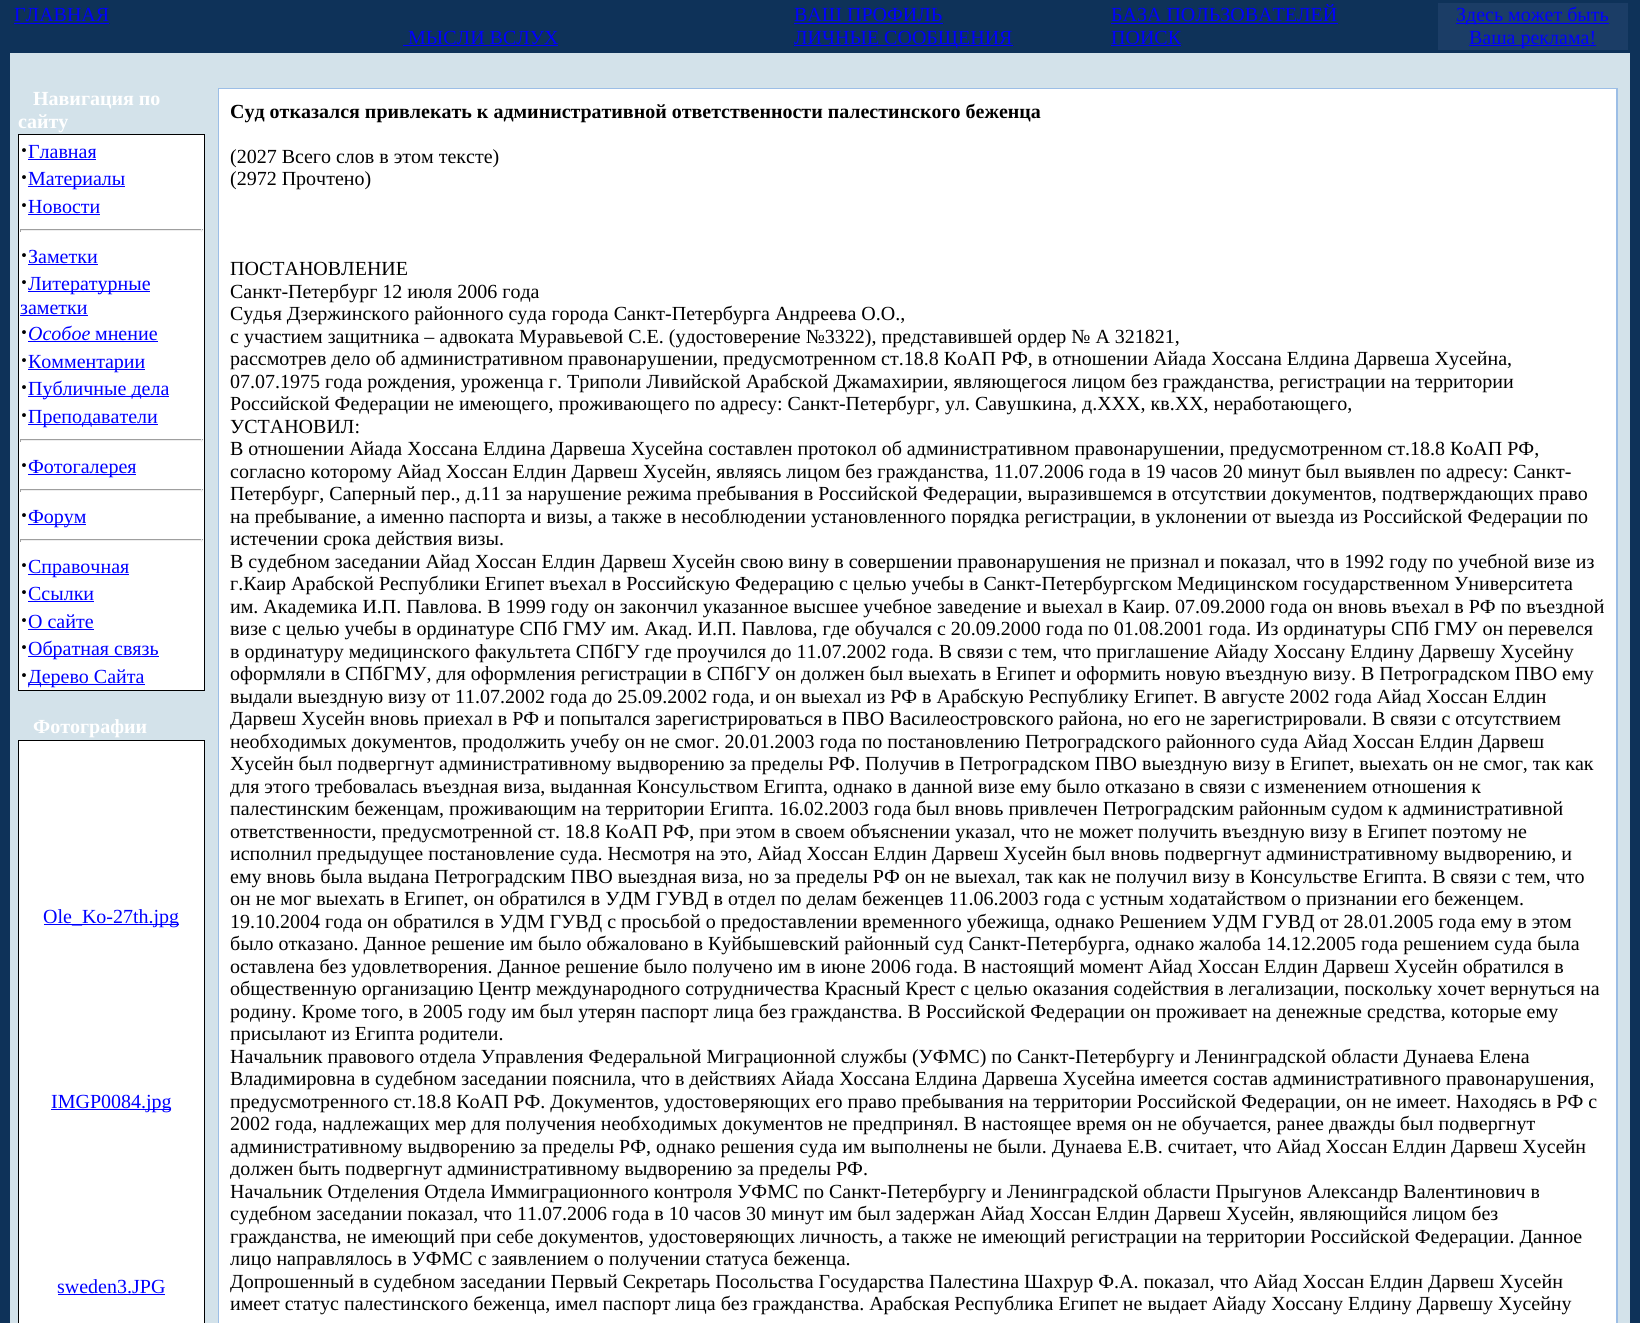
import math
import cairo

surface = cairo.ImageSurface(cairo.FORMAT_RGB24, 1640, 1323)
c = cairo.Context(surface)
options = cairo.FontOptions()
options.set_hint_metrics(cairo.HINT_METRICS_OFF)
options.set_hint_style(cairo.HINT_STYLE_NONE)
c.set_font_options(options)
c.set_miter_limit(4)
def C(code):
 c.set_source_rgb(*(v / 255 for v in bytes.fromhex(code[-6:])))
def F(family, size, italic, bold):
 c.select_font_face(family, cairo.FONT_SLANT_ITALIC if italic else cairo.FONT_SLANT_NORMAL, cairo.FONT_WEIGHT_BOLD if bold else cairo.FONT_WEIGHT_NORMAL)
 c.set_font_size(size)
def T(x, y, s):
 c.move_to(x, y)
 c.show_text(s)
def R(x, y, w, h):
 c.rectangle(x, y, w, h)
 c.fill()
C('0e3259')
c.paint()
F('Liberation Serif',20,0,0)
C('0000ff')
T(14,21,'ГЛАВНАЯ')
R(14,23,95,1)
T(408,44,'МЫСЛИ ВСЛУХ')
R(403,45,155,1)
T(794,21,'ВАШ ПРОФИЛЬ')
R(794,23,149,1)
R(794,45,219,1)
T(794,44,'ЛИЧНЫЕ СООБЩЕНИЯ')
T(1111,21,'БАЗА ПОЛЬЗОВАТЕЛЕЙ')
R(1111,23,227,1)
T(1111,44,'ПОИСК')
R(1111,45,70,1)
C('1b3d66')
R(1438,3,190,47)
C('0000ff')
R(1456,23,153,1)
T(1456,21,'Здесь может быть')
R(1469,45,127,1)
T(1469,44,'Ваша реклама!')
C('d3e2ea')
R(10,53,1620,1270)
F('Liberation Serif',20,0,1)
C('ffffff')
T(33,105,'Навигация по')
T(18,128,'сайту')
C('000000')
R(18,134,187,557)
C('ffffff')
R(19,135,185,555)
F('Liberation Serif',24,0,1)
C('000000')
T(20,158,'·')
F('Liberation Serif',20,0,0)
C('0000ff')
T(28,158,'Главная')
R(28,159,68,1)
F('Liberation Serif',24,0,1)
C('000000')
T(20,185,'·')
C('0000ff')
R(28,186,97,1)
F('Liberation Serif',20,0,0)
T(28,185,'Материалы')
F('Liberation Serif',24,0,1)
C('000000')
T(20,213,'·')
F('Liberation Serif',20,0,0)
C('0000ff')
T(28,213,'Новости')
R(28,214,72,1)
C('9f9f9f')
R(20,229,183,1)
C('eeeeee')
R(201,229,1,3)
R(20,230,183,1)
C('9f9f9f')
R(20,229,1,3)
F('Liberation Serif',24,0,1)
C('000000')
T(20,263,'·')
F('Liberation Serif',20,0,0)
C('0000ff')
T(28,263,'Заметки')
R(28,264,70,1)
F('Liberation Serif',24,0,1)
C('000000')
T(20,290,'·')
C('0000ff')
R(28,291,122,1)
F('Liberation Serif',20,0,0)
T(28,290,'Литературные')
T(20,314,'заметки')
R(20,315,68,1)
F('Liberation Serif',24,0,1)
C('000000')
T(20,340,'·')
F('Liberation Serif',20,1,0)
C('0000ff')
T(28,340,'Особое')
F('Liberation Serif',20,0,0)
T(95,340,'мнение')
R(28,341,130,1)
F('Liberation Serif',24,0,1)
C('000000')
T(20,368,'·')
C('0000ff')
R(28,369,117,1)
F('Liberation Serif',20,0,0)
T(28,368,'Комментарии')
F('Liberation Serif',24,0,1)
C('000000')
T(20,395,'·')
C('0000ff')
R(28,396,141,1)
F('Liberation Serif',20,0,0)
T(28,395,'Публичные дела')
F('Liberation Serif',24,0,1)
C('000000')
T(20,423,'·')
C('0000ff')
R(28,424,130,1)
F('Liberation Serif',20,0,0)
T(28,423,'Преподаватели')
C('9f9f9f')
R(20,439,183,1)
C('eeeeee')
R(201,439,1,3)
R(20,440,183,1)
C('9f9f9f')
R(20,439,1,3)
F('Liberation Serif',24,0,1)
C('000000')
T(20,473,'·')
C('0000ff')
R(28,474,108,1)
F('Liberation Serif',20,0,0)
T(28,473,'Фотогалерея')
C('9f9f9f')
R(20,489,183,1)
C('eeeeee')
R(201,489,1,3)
R(20,490,183,1)
C('9f9f9f')
R(20,489,1,3)
F('Liberation Serif',24,0,1)
C('000000')
T(20,523,'·')
C('0000ff')
R(28,524,58,1)
F('Liberation Serif',20,0,0)
T(28,523,'Форум')
C('9f9f9f')
R(20,539,183,1)
C('eeeeee')
R(201,539,1,3)
R(20,540,183,1)
C('9f9f9f')
R(20,539,1,3)
F('Liberation Serif',24,0,1)
C('000000')
T(20,573,'·')
C('0000ff')
R(28,574,101,1)
F('Liberation Serif',20,0,0)
T(28,573,'Справочная')
F('Liberation Serif',24,0,1)
C('000000')
T(20,600,'·')
F('Liberation Serif',20,0,0)
C('0000ff')
T(28,600,'Ссылки')
R(28,601,66,1)
F('Liberation Serif',24,0,1)
C('000000')
T(20,628,'·')
F('Liberation Serif',20,0,0)
C('0000ff')
T(28,628,'О сайте')
R(28,629,66,1)
F('Liberation Serif',24,0,1)
C('000000')
T(20,655,'·')
C('0000ff')
R(28,656,131,1)
F('Liberation Serif',20,0,0)
T(28,655,'Обратная связь')
F('Liberation Serif',24,0,1)
C('000000')
T(20,683,'·')
C('0000ff')
R(28,684,117,1)
F('Liberation Serif',20,0,0)
T(28,683,'Дерево Сайта')
F('Liberation Serif',20,0,1)
C('ffffff')
T(33,733,'Фотографии')
C('000000')
R(18,740,187,583)
C('ffffff')
R(19,741,185,582)
C('0000ff')
R(44,924,135,1)
F('Liberation Serif',20,0,0)
T(43,923,'Ole_Ko-27th.jpg')
R(51,1109,120,1)
T(51,1108,'IMGP0084.jpg')
T(57,1293,'sweden3.JPG')
R(58,1294,107,1)
C('9cbee6')
R(218,88,1400,1235)
C('ffffff')
R(219,89,1397,1234)
F('Liberation Serif',20,0,1)
C('000000')
T(230,118,'Суд отказался привлекать к административной ответственности палестинского беженца')
F('Liberation Serif',20,0,0)
T(230,163,'(2027 Всего слов в этом тексте)')
T(230,185,'(2972 Прочтено)')
T(230,275,'ПОСТАНОВЛЕНИЕ')
T(230,298,'Санкт-Петербург 12 июля 2006 года')
T(230,320,'Судья Дзержинского районного суда города Санкт-Петербурга Андреева О.О.,')
T(230,343,'с участием защитника – адвоката Муравьевой С.Е. (удостоверение №3322), представившей ордер № А 321821,')
T(230,365,'рассмотрев дело об административном правонарушении, предусмотренном ст.18.8 КоАП РФ, в отношении Айада Хоссана Елдина Дарвеша Хусейна,')
T(230,388,'07.07.1975 года рождения, уроженца г. Триполи Ливийской Арабской Джамахирии, являющегося лицом без гражданства, регистрации на территории')
T(230,410,'Российской Федерации не имеющего, проживающего по адресу: Санкт-Петербург, ул. Савушкина, д.ХХХ, кв.ХХ, неработающего,')
T(230,433,'УСТАНОВИЛ:')
T(230,455,'В отношении Айада Хоссана Елдина Дарвеша Хусейна составлен протокол об административном правонарушении, предусмотренном ст.18.8 КоАП РФ,')
T(230,478,'согласно которому Айад Хоссан Елдин Дарвеш Хусейн, являясь лицом без гражданства, 11.07.2006 года в 19 часов 20 минут был выявлен по адресу: Санкт-')
T(230,500,'Петербург, Саперный пер., д.11 за нарушение режима пребывания в Российской Федерации, выразившемся в отсутствии документов, подтверждающих право')
T(230,523,'на пребывание, а именно паспорта и визы, а также в несоблюдении установленного порядка регистрации, в уклонении от выезда из Российской Федерации по')
T(230,545,'истечении срока действия визы.')
T(230,568,'В судебном заседании Айад Хоссан Елдин Дарвеш Хусейн свою вину в совершении правонарушения не признал и показал, что в 1992 году по учебной визе из')
T(230,590,'г.Каир Арабской Республики Египет въехал в Российскую Федерацию с целью учебы в Санкт-Петербургском Медицинском государственном Университета')
T(230,613,'им. Академика И.П. Павлова. В 1999 году он закончил указанное высшее учебное заведение и выехал в Каир. 07.09.2000 года он вновь въехал в РФ по въездной')
T(230,635,'визе с целью учебы в ординатуре СПб ГМУ им. Акад. И.П. Павлова, где обучался с 20.09.2000 года по 01.08.2001 года. Из ординатуры СПб ГМУ он перевелся')
T(230,658,'в ординатуру медицинского факультета СПбГУ где проучился до 11.07.2002 года. В связи с тем, что приглашение Айаду Хоссану Елдину Дарвешу Хусейну')
T(230,680,'оформляли в СПбГМУ, для оформления регистрации в СПбГУ он должен был выехать в Египет и оформить новую въездную визу. В Петроградском ПВО ему')
T(230,703,'выдали выездную визу от 11.07.2002 года до 25.09.2002 года, и он выехал из РФ в Арабскую Республику Египет. В августе 2002 года Айад Хоссан Елдин')
T(230,725,'Дарвеш Хусейн вновь приехал в РФ и попытался зарегистрироваться в ПВО Василеостровского района, но его не зарегистрировали. В связи с отсутствием')
T(230,748,'необходимых документов, продолжить учебу он не смог. 20.01.2003 года по постановлению Петроградского районного суда Айад Хоссан Елдин Дарвеш')
T(230,770,'Хусейн был подвергнут административному выдворению за пределы РФ. Получив в Петроградском ПВО выездную визу в Египет, выехать он не смог, так как')
T(230,793,'для этого требовалась въездная виза, выданная Консульством Египта, однако в данной визе ему было отказано в связи с изменением отношения к')
T(230,815,'палестинским беженцам, проживающим на территории Египта. 16.02.2003 года был вновь привлечен Петроградским районным судом к административной')
T(230,838,'ответственности, предусмотренной ст. 18.8 КоАП РФ, при этом в своем объяснении указал, что не может получить въездную визу в Египет поэтому не')
T(230,860,'исполнил предыдущее постановление суда. Несмотря на это, Айад Хоссан Елдин Дарвеш Хусейн был вновь подвергнут административному выдворению, и')
T(230,883,'ему вновь была выдана Петроградским ПВО выездная виза, но за пределы РФ он не выехал, так как не получил визу в Консульстве Египта. В связи с тем, что')
T(230,905,'он не мог выехать в Египет, он обратился в УДМ ГУВД в отдел по делам беженцев 11.06.2003 года с устным ходатайством о признании его беженцем.')
T(230,928,'19.10.2004 года он обратился в УДМ ГУВД с просьбой о предоставлении временного убежища, однако Решением УДМ ГУВД от 28.01.2005 года ему в этом')
T(230,950,'было отказано. Данное решение им было обжаловано в Куйбышевский районный суд Санкт-Петербурга, однако жалоба 14.12.2005 года решением суда была')
T(230,973,'оставлена без удовлетворения. Данное решение было получено им в июне 2006 года. В настоящий момент Айад Хоссан Елдин Дарвеш Хусейн обратился в')
T(230,995,'общественную организацию Центр международного сотрудничества Красный Крест с целью оказания содействия в легализации, поскольку хочет вернуться на')
T(230,1018,'родину. Кроме того, в 2005 году им был утерян паспорт лица без гражданства. В Российской Федерации он проживает на денежные средства, которые ему')
T(230,1040,'присылают из Египта родители.')
T(230,1063,'Начальник правового отдела Управления Федеральной Миграционной службы (УФМС) по Санкт-Петербургу и Ленинградской области Дунаева Елена')
T(230,1085,'Владимировна в судебном заседании пояснила, что в действиях Айада Хоссана Елдина Дарвеша Хусейна имеется состав административного правонарушения,')
T(230,1108,'предусмотренного ст.18.8 КоАП РФ. Документов, удостоверяющих его право пребывания на территории Российской Федерации, он не имеет. Находясь в РФ с')
T(230,1130,'2002 года, надлежащих мер для получения необходимых документов не предпринял. В настоящее время он не обучается, ранее дважды был подвергнут')
T(230,1153,'административному выдворению за пределы РФ, однако решения суда им выполнены не были. Дунаева Е.В. считает, что Айад Хоссан Елдин Дарвеш Хусейн')
T(230,1175,'должен быть подвергнут административному выдворению за пределы РФ.')
T(230,1198,'Начальник Отделения Отдела Иммиграционного контроля УФМС по Санкт-Петербургу и Ленинградской области Прыгунов Александр Валентинович в')
T(230,1220,'судебном заседании показал, что 11.07.2006 года в 10 часов 30 минут им был задержан Айад Хоссан Елдин Дарвеш Хусейн, являющийся лицом без')
T(230,1243,'гражданства, не имеющий при себе документов, удостоверяющих личность, а также не имеющий регистрации на территории Российской Федерации. Данное')
T(230,1265,'лицо направлялось в УФМС с заявлением о получении статуса беженца.')
T(230,1288,'Допрошенный в судебном заседании Первый Секретарь Посольства Государства Палестина Шахрур Ф.А. показал, что Айад Хоссан Елдин Дарвеш Хусейн')
T(230,1310,'имеет статус палестинского беженца, имел паспорт лица без гражданства. Арабская Республика Египет не выдает Айаду Хоссану Елдину Дарвешу Хусейну')
surface.write_to_png('o.png')
